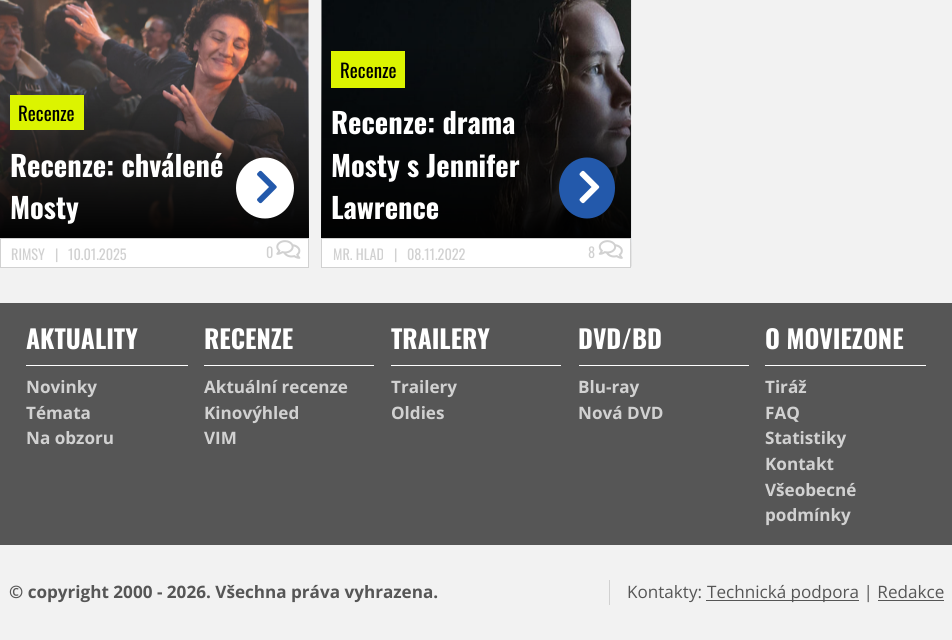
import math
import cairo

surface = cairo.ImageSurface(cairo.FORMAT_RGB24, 952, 640)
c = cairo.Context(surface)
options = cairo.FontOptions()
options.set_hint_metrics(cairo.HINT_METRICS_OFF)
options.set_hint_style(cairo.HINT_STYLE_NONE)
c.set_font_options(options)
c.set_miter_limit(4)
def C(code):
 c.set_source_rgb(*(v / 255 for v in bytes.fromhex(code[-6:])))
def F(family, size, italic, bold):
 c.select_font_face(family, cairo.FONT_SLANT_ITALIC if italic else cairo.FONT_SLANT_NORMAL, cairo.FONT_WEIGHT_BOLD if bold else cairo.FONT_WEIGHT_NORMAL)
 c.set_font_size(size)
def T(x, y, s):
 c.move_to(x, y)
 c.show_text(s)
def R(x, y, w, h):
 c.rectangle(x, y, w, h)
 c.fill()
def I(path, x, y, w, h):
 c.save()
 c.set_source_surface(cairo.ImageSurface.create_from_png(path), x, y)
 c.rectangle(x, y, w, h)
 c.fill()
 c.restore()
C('f2f2f2')
c.paint()
C('ffffff')
R(0,0,309,237)
I('1.png',0,0,309,237)
gradient = cairo.LinearGradient(154,85,154,238)
gradient.add_color_stop_rgba(0,0.004,0.004,0.004,0)
gradient.add_color_stop_rgba(1,0.004,0.004,0.004,1)
c.set_source(gradient)
R(0,88,309,150)
C('dcf400')
R(10,95,74,35)
F('Oswald',19,0,0)
C('000000')
T(18,121,'Recenze')
F('Oswald',28.5,0,1)
C('ffffff')
T(10,177,'Recenze: chválené')
T(10,219,'Mosty')
c.new_path()
c.move_to(265,157.5)
c.curve_to(281,157.5,294,171,294,188)
c.curve_to(294,205,281,218.5,265,218.5)
c.curve_to(249,218.5,236,205,236,188)
c.curve_to(236,171,249,157.5,265,157.5)
c.close_path()
c.fill()
I('2.png',257,170,20,34)
c.rectangle(.5,238.5,308,29)
c.fill_preserve()
C('d1d1d1')
c.set_line_width(1)
c.stroke()
F('Oswald',14.25,0,0)
T(11,260,'RIMSY')
T(55,260,'|')
T(68,260,'10.01.2025')
T(266,258,'0')
I('3.png',276,240,25,19)
C('ffffff')
R(321,0,1,237)
I('4.png',321,0,311,267)
gradient = cairo.LinearGradient(476,42,476,238)
gradient.add_color_stop_rgba(0,0.004,0.004,0.004,0)
gradient.add_color_stop_rgba(1,0.004,0.004,0.004,1)
c.set_source(gradient)
R(321,46,310,192)
C('dcf400')
R(331,51,74,37)
F('Oswald',19,0,0)
C('000000')
T(340,78,'Recenze')
F('Oswald',28.5,0,1)
C('ffffff')
T(331,134,'Recenze: drama')
T(331,177,'Mosty s Jennifer')
T(331,219,'Lawrence')
C('2359ab')
c.new_path()
c.move_to(587,157.5)
c.curve_to(602.5,157.5,615,171,615,188)
c.curve_to(615,205,602.5,218.5,587,218.5)
c.curve_to(571.5,218.5,559,205,559,188)
c.curve_to(559,171,571.5,157.5,587,157.5)
c.close_path()
c.fill()
I('5.png',579,170,21,34)
C('ffffff')
c.rectangle(321.5,238.5,309,29)
c.fill_preserve()
C('d1d1d1')
c.stroke()
F('Oswald',14.25,0,0)
T(333,260,'MR. HLAD')
T(394,260,'|')
T(407,260,'08.11.2022')
T(588,258,'8')
I('6.png',598,240,25,19)
C('565656')
R(0,303,952,242)
C('ffffff')
R(26,365,162,1)
F('Oswald',25.5,0,1)
T(26,349,'AKTUALITY')
F('Open Sans',17.1,0,1)
C('d1d1d1')
T(26,393,'Novinky')
T(26,419,'Témata')
T(26,444,'Na obzoru')
C('ffffff')
R(204,365,170,1)
F('Oswald',25.5,0,1)
T(204,349,'RECENZE')
F('Open Sans',17.1,0,1)
C('d1d1d1')
T(204,393,'Aktuální recenze')
T(204,419,'Kinovýhled')
T(204,444,'VIM')
C('ffffff')
R(391,365,170,1)
F('Oswald',25.5,0,1)
T(391,349,'TRAILERY')
F('Open Sans',17.1,0,1)
C('d1d1d1')
T(391,393,'Trailery')
T(391,419,'Oldies')
C('ffffff')
R(579,365,170,1)
F('Oswald',25.5,0,1)
T(578,349,'DVD/BD')
F('Open Sans',17.1,0,1)
C('d1d1d1')
T(578,393,'Blu-ray')
T(578,419,'Nová DVD')
C('ffffff')
R(765,365,161,1)
F('Oswald',25.5,0,1)
T(765,349,'O MOVIEZONE')
F('Open Sans',17.1,0,1)
C('d1d1d1')
T(765,393,'Tiráž')
T(765,419,'FAQ')
T(765,444,'Statistiky')
T(765,470,'Kontakt')
T(765,496,'Všeobecné')
T(765,521,'podmínky')
C('565656')
T(9,598,'© copyright 2000 - 2026. Všechna práva vyhrazena.')
C('d1d1d1')
R(609,580,1,25)
F('Open Sans',17.1,0,0)
C('565656')
T(627,598,'Kontakty:')
R(706,600,153,1)
T(707,598,'Technická podpora | Redakce')
R(878,600,66,1)
surface.write_to_png('o.png')
